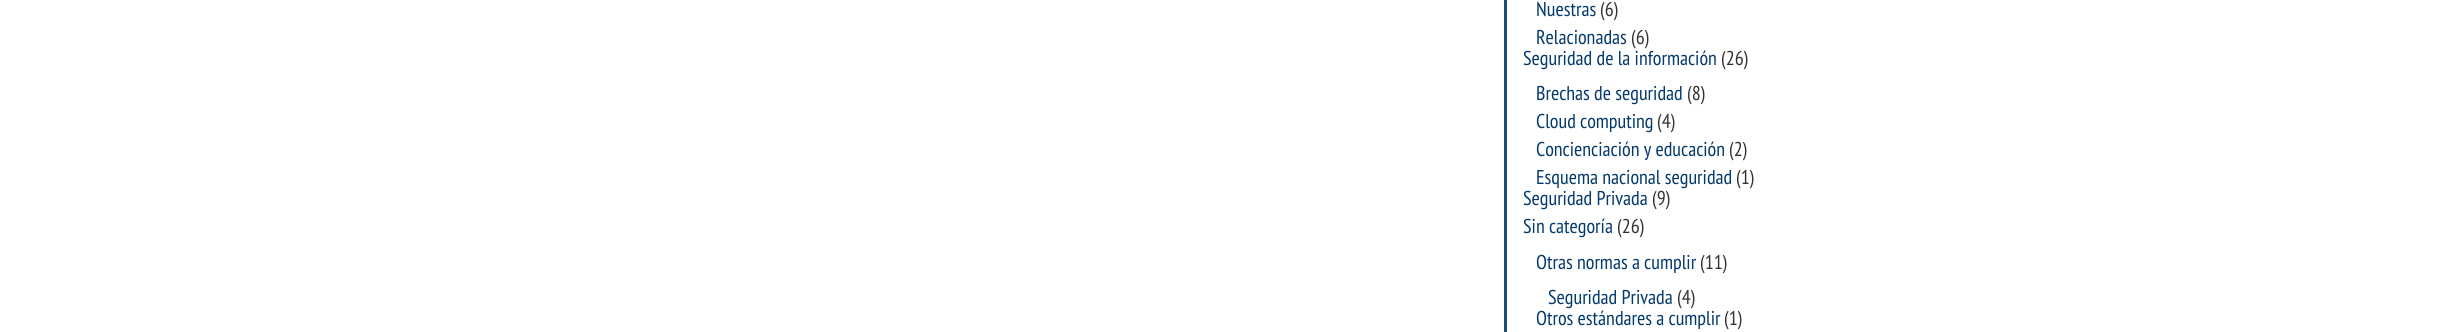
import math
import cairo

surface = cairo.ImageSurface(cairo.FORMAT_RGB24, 2446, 332)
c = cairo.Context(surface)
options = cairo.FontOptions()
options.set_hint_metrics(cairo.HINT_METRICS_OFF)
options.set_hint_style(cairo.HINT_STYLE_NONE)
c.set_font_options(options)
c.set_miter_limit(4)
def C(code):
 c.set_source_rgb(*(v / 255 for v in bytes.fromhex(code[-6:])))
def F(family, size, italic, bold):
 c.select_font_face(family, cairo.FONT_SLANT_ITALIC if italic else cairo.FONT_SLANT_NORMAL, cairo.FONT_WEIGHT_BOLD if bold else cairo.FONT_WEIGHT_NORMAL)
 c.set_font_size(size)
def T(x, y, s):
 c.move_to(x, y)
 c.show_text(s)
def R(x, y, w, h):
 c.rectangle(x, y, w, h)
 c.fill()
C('ffffff')
c.paint()
C('1c4d79')
R(1504,0,3,332)
F('PT Sans Narrow',20,0,0)
C('03396b')
T(1536,16,'Nuestras')
C('333333')
T(1600,16,'(6)')
C('03396b')
T(1536,44,'Relacionadas')
C('333333')
T(1631,44,'(6)')
C('03396b')
T(1523,65,'Seguridad de la información')
C('333333')
T(1721,65,'(26)')
C('03396b')
T(1536,100,'Brechas de seguridad')
C('333333')
T(1687,100,'(8)')
C('03396b')
T(1536,128,'Cloud computing')
C('333333')
T(1657,128,'(4)')
C('03396b')
T(1536,156,'Concienciación y educación')
C('333333')
T(1729,156,'(2)')
C('03396b')
T(1536,184,'Esquema nacional seguridad')
C('333333')
T(1736,184,'(1)')
C('03396b')
T(1523,205,'Seguridad Privada')
C('333333')
T(1652,205,'(9)')
C('03396b')
T(1523,233,'Sin categoría')
C('333333')
T(1617,233,'(26)')
C('03396b')
T(1536,269,'Otras normas a cumplir')
C('333333')
T(1700,269,'(11)')
C('03396b')
T(1548,304,'Seguridad Privada')
C('333333')
T(1677,304,'(4)')
C('03396b')
T(1536,325,'Otros estándares a cumplir')
C('333333')
T(1724,325,'(1)')
surface.write_to_png('o.png')
